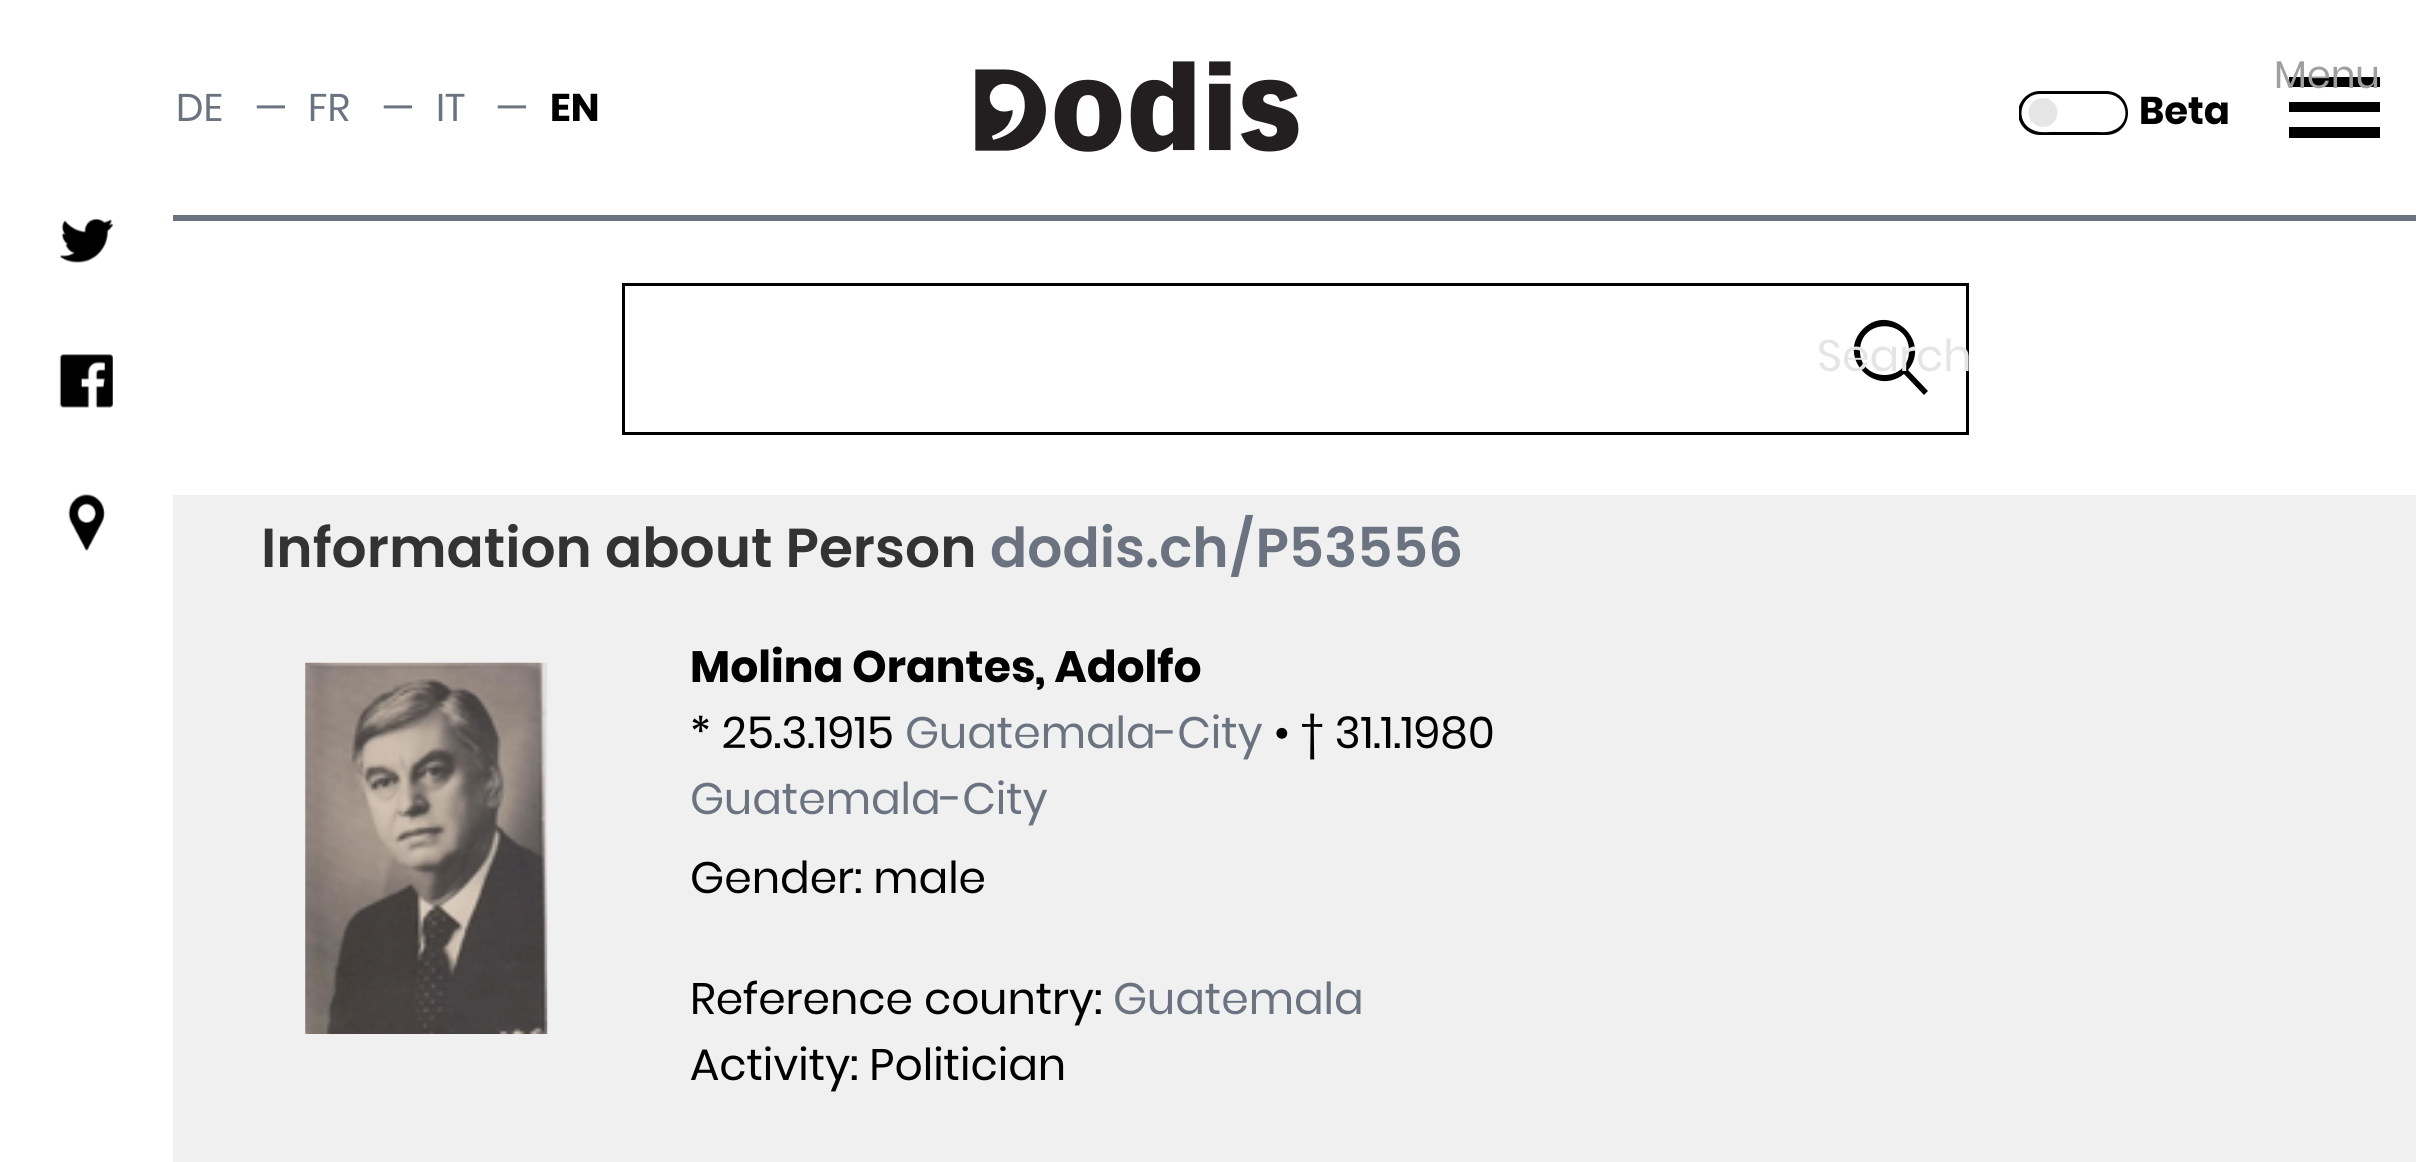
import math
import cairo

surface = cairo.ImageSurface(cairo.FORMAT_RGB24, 2416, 1162)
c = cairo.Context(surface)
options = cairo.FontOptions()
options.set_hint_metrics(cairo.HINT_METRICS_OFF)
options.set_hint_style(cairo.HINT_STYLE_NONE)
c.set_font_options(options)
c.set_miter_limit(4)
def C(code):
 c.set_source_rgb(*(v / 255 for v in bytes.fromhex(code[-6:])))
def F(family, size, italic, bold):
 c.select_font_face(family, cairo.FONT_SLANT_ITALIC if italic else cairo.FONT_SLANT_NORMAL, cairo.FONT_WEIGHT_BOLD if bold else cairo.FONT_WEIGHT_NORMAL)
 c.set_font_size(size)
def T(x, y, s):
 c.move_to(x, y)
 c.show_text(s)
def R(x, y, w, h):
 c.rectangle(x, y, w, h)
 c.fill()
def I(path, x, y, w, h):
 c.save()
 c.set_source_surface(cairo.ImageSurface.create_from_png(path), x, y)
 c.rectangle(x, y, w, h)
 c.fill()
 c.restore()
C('ffffff')
c.paint()
C('6b7280')
R(173,215,2243,6)
F('Poppins',38.5,0,0)
T(176,121,'DE')
T(255,121,'—')
T(308,121,'FR')
T(382,121,'—')
T(436,121,'IT')
T(496,121,'—')
F('Poppins',38.5,0,1)
C('000000')
T(550,121,'EN')
I('1.png',975,61,324,91)
c.new_path()
c.move_to(2380,138)
c.line_to(2289,138)
c.line_to(2289,127)
c.line_to(2380,127)
c.close_path()
c.move_to(2380,112)
c.line_to(2289,112)
c.line_to(2289,102)
c.line_to(2380,102)
c.close_path()
c.move_to(2380,87)
c.line_to(2289,87)
c.line_to(2289,77)
c.line_to(2380,77)
c.close_path()
c.fill()
F('Poppins',38.5,0,0)
C('9f9f9f')
T(2274,88,'Menu')
F('Poppins',38.5,0,1)
C('000000')
T(2139,124,'Beta')
C('e6e6e6')
c.new_path()
c.arc(2043,112.5,14.5,0,2 * math.pi)
c.fill()
c.save()
c.rectangle(2019,91,110,44)
c.clip()
C('000000')
c.new_path()
c.move_to(2106,135)
c.line_to(2040,135)
c.curve_to(2028,135,2018,125,2018,113)
c.curve_to(2018,101,2028,91,2040,91)
c.line_to(2106,91)
c.curve_to(2119,91,2128,101,2128,113)
c.curve_to(2128,125,2119,135,2106,135)
c.close_path()
c.move_to(2040,94)
c.curve_to(2020,94,2014,122,2033,130)
c.curve_to(2039,133,2046,132,2052,132)
c.line_to(2096,132)
c.curve_to(2101,132,2108,133,2114,130)
c.curve_to(2133,122,2127,94,2106,94)
c.close_path()
c.fill()
c.restore()
I('2.png',59,218,54,45)
I('3.png',59,354,54,54)
I('4.png',68,494,37,57)
c.rectangle(623.5,284.5,1344,149)
C('000000')
c.set_line_width(3)
c.stroke()
c.new_path()
c.move_to(1928,391)
c.line_to(1908,370)
c.curve_to(1932,341,1890,302,1863,329)
c.curve_to(1836,356,1874,398,1904,374)
c.line_to(1924,395)
c.close_path()
c.move_to(1860,351)
c.curve_to(1860,318,1909,318,1909,351)
c.curve_to(1909,383,1860,383,1860,351)
c.close_path()
c.fill()
F('Poppins',44,0,0)
C('e5e5e5')
T(1817,371,'Search')
C('f0f0f0')
R(173,495,2243,667)
F('Poppins SemiBold',55,0,0)
C('333333')
T(261,567,'Information about Person')
C('6b7280')
T(990,567,'dodis.ch/P53556')
I('5.png',305,662,243,372)
F('Poppins',44,0,1)
C('000000')
T(690,682,'Molina Orantes, Adolfo')
F('Poppins',44,0,0)
T(690,748,'* 25.3.1915')
C('6b7280')
T(905,748,'Guatemala-City')
C('000000')
T(1274,748,'• † 31.1.1980')
C('6b7280')
T(690,814,'Guatemala-City')
C('000000')
T(690,893,'Gender: male')
T(690,1014,'Reference country:')
C('6b7280')
T(1113,1014,'Guatemala')
C('000000')
T(690,1080,'Activity: Politician')
surface.write_to_png('o.png')
